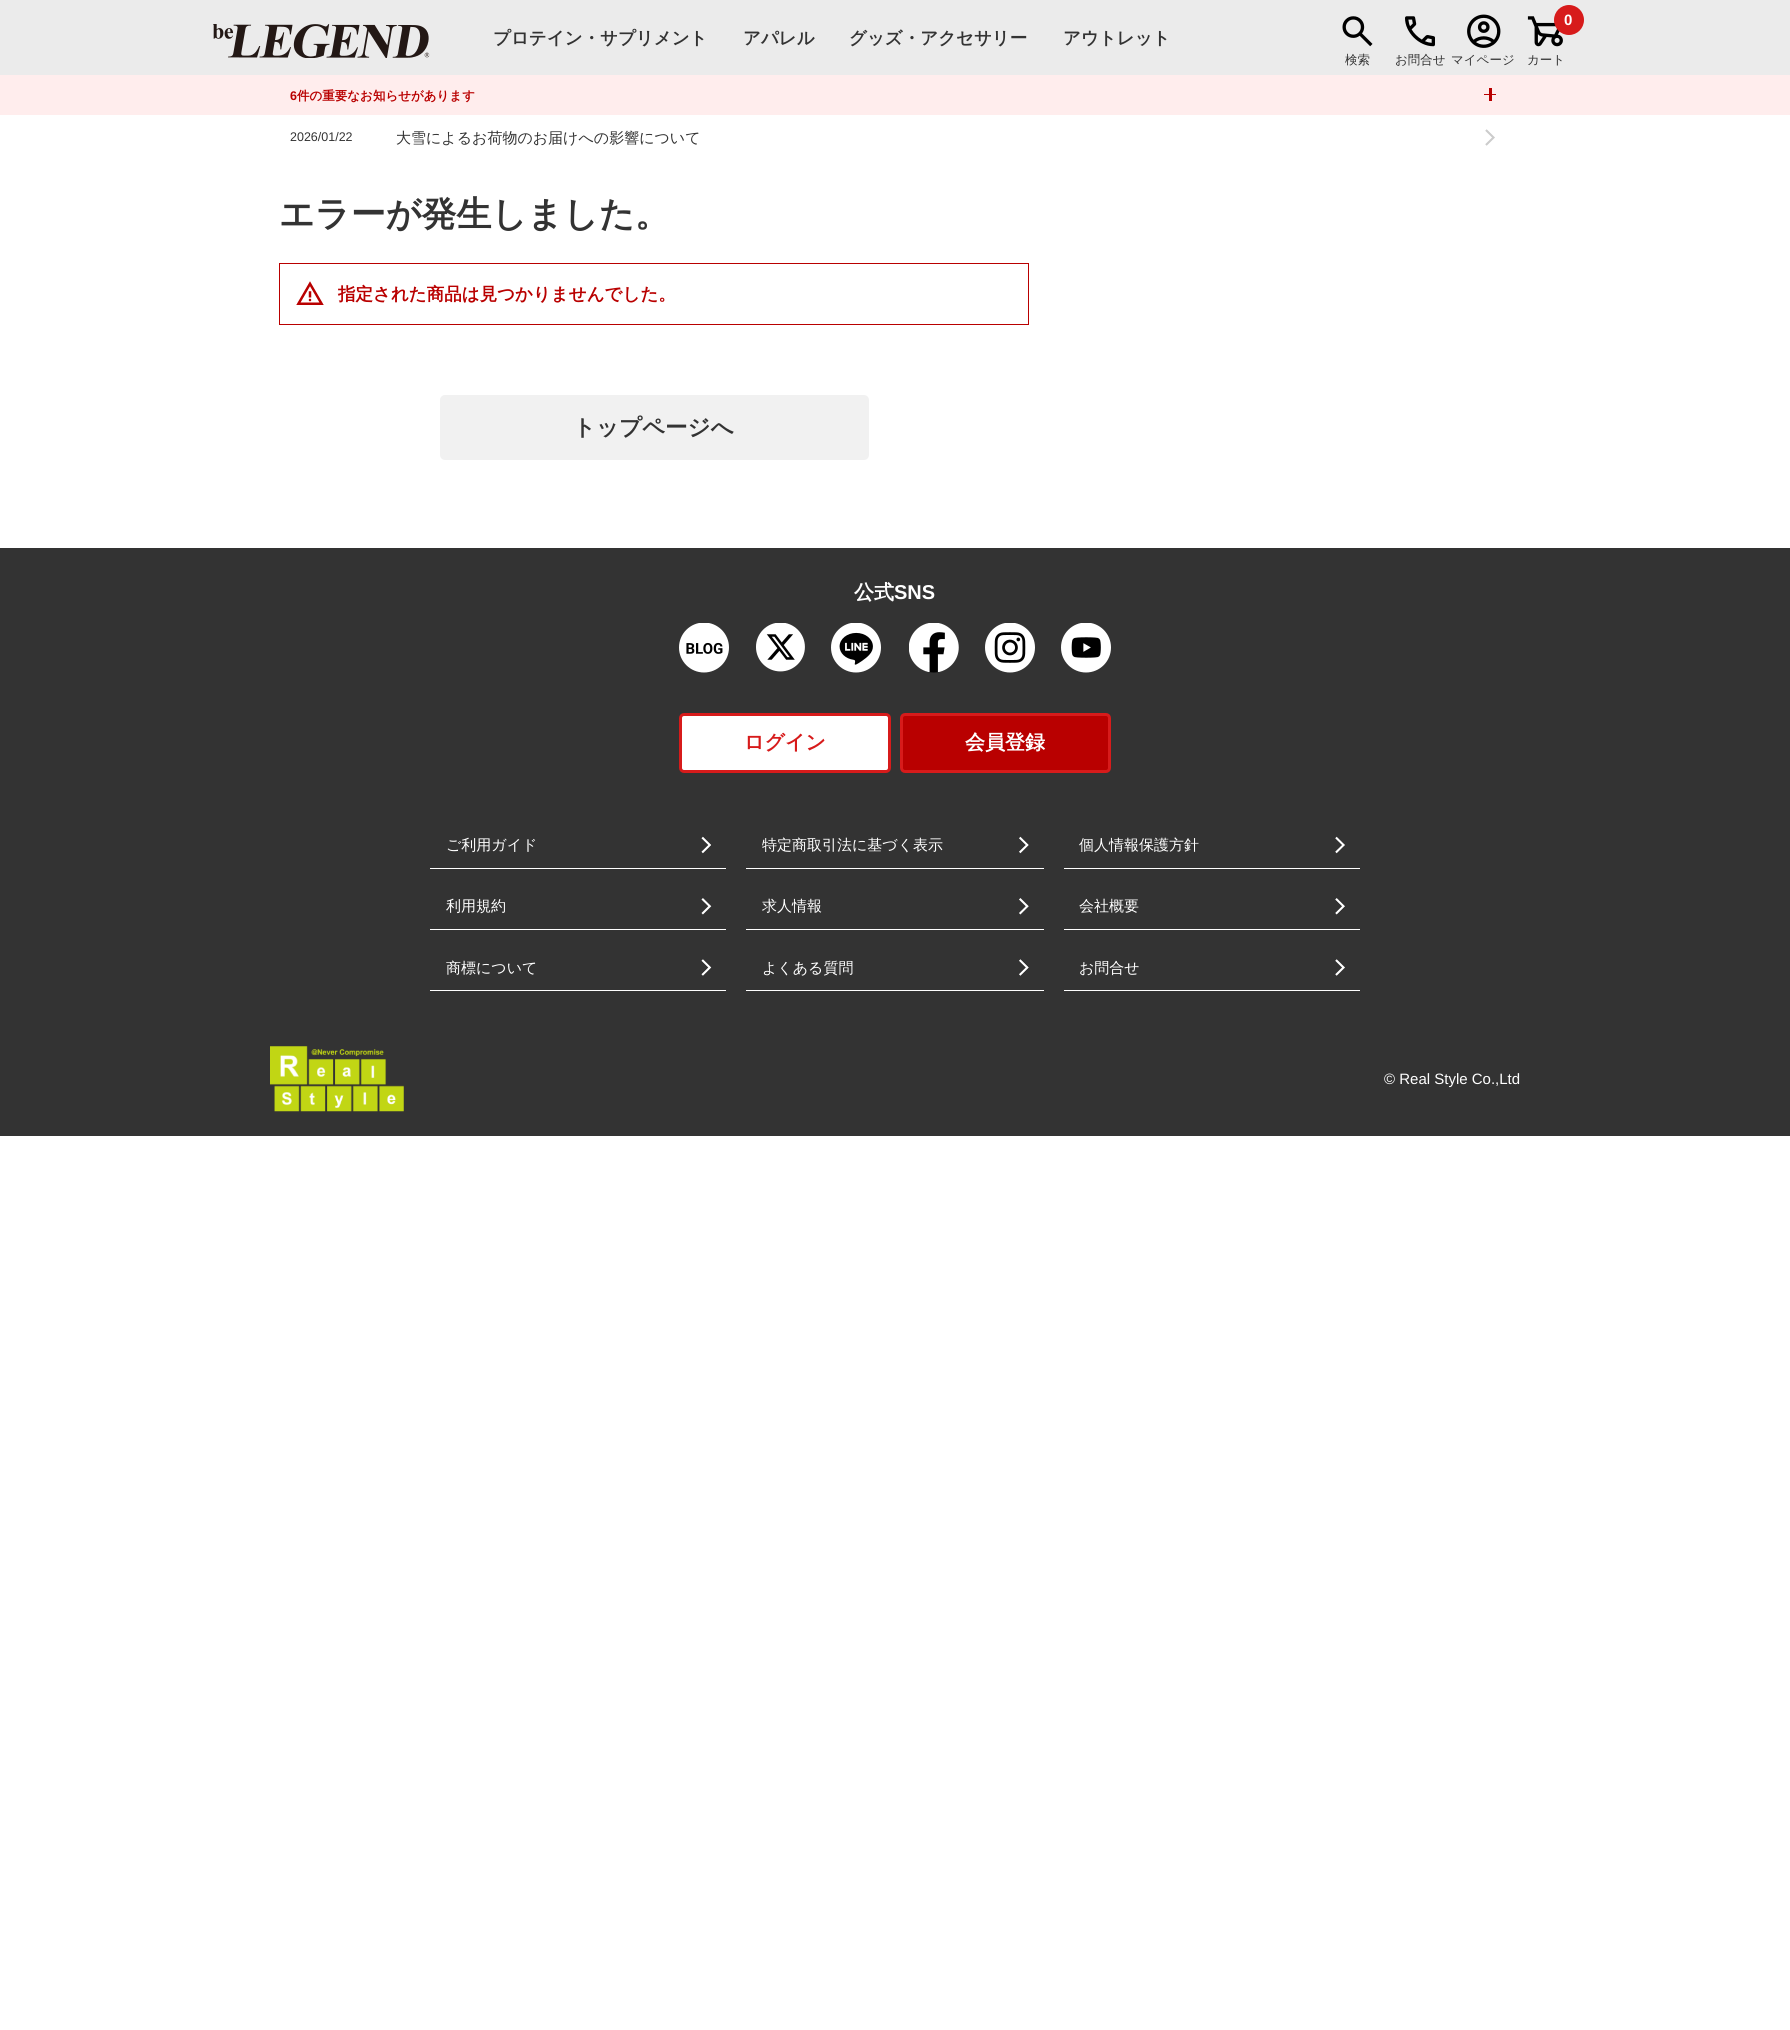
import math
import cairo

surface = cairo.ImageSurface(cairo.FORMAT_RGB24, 1790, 2030)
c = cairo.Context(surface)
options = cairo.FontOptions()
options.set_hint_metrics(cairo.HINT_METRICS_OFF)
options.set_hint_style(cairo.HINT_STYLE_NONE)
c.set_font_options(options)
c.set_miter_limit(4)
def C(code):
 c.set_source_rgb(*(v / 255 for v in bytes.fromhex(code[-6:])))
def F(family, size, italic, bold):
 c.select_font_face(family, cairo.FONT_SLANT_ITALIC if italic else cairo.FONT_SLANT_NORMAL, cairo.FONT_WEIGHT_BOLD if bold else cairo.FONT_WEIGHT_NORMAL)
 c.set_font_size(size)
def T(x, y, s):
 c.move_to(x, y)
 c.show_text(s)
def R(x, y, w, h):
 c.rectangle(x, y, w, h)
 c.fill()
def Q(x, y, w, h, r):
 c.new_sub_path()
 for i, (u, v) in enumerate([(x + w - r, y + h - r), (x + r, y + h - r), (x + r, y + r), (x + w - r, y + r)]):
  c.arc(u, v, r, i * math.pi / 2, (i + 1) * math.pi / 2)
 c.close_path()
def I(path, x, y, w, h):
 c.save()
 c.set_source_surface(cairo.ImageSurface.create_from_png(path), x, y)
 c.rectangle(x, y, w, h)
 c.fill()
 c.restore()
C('ffffff')
c.paint()
C('ebebeb')
R(0,0,1790,75)
I('1.png',213,24,217,34)
F('WenQuanYi Zen Hei',17.5,0,1)
C('333333')
T(493,44,'プロテイン・サプリメント')
T(743,44,'アパレル')
T(849,44,'グッズ・アクセサリー')
T(1063,44,'アウトレット')
I('2.png',1342,16,31,31)
F('WenQuanYi Zen Hei Medium',12.5,0,0)
T(1345,64,'検索')
I('3.png',1405,16,30,31)
T(1395,64,'お問合せ')
I('4.png',1467,14,34,34)
T(1451,64,'マイページ')
I('5.png',1527,16,36,31)
C('d71b1b')
c.arc(1569,20,15,0,2 * math.pi)
c.fill()
F('Liberation Sans',15,0,1)
C('ffffff')
T(1564,25,'0')
F('WenQuanYi Zen Hei Medium',12.5,0,0)
C('333333')
T(1527,64,'カート')
C('ffeded')
R(0,75,1790,40)
F('Liberation Sans',12.5,0,1)
C('b90000')
T(290,100,'6')
F('WenQuanYi Zen Hei',12.5,0,1)
T(297,100,'件の重要なお知らせがあります')
R(1484,94,12,1)
R(1489,88,3,13)
F('Liberation Sans',12.5,0,0)
C('333333')
T(290,141,'2026/01/22')
F('WenQuanYi Zen Hei Medium',15,0,0)
T(396,143,'大雪によるお荷物のお届けへの影響について')
I('6.png',1485,129,10,17)
F('WenQuanYi Zen Hei',35,0,1)
T(279,226,'エラーが発生しました。')
I('7.png',296,281,28,24)
c.rectangle(279.5,263.5,749,61)
C('b90000')
c.set_line_width(1)
c.stroke()
F('WenQuanYi Zen Hei',17.5,0,1)
T(338,300,'指定された商品は見つかりませんでした。')
C('f1f1f1')
Q(440,395,429,65,5)
c.fill()
F('WenQuanYi Zen Hei',22.5,0,1)
C('333333')
T(573,435,'トップページへ')
R(0,548,1790,588)
F('WenQuanYi Zen Hei',20,0,1)
C('ffffff')
T(854,599,'公式')
F('Liberation Sans',20,0,1)
T(894,599,'SNS')
I('8.png',679,623,50,50)
I('9.png',756,623,49,49)
I('10.png',831,623,50,50)
I('11.png',909,623,50,50)
I('12.png',985,623,50,50)
I('13.png',1061,623,50,50)
Q(680.5,714.5,209,57,3.5)
c.fill_preserve()
C('d71b1b')
c.set_line_width(3)
c.stroke()
F('WenQuanYi Zen Hei',20,0,1)
T(744,749,'ログイン')
C('b90000')
Q(901.5,714.5,208,57,3.5)
c.fill_preserve()
C('d71b1b')
c.stroke()
C('ffffff')
T(965,749,'会員登録')
R(430,868,296,1)
F('WenQuanYi Zen Hei Medium',15,0,0)
T(446,850,'ご利用ガイド')
I('14.png',701,836,10,18)
R(746,868,298,1)
T(762,850,'特定商取引法に基づく表示')
I('15.png',1019,836,10,18)
R(1064,868,296,1)
T(1079,850,'個人情報保護方針')
I('16.png',1335,836,10,18)
R(430,929,296,1)
T(446,911,'利用規約')
I('17.png',701,898,11,17)
R(746,929,298,1)
T(762,911,'求人情報')
I('18.png',1019,898,10,17)
R(1064,929,296,1)
T(1079,911,'会社概要')
I('19.png',1335,898,10,17)
R(430,990,296,1)
T(446,973,'商標について')
I('20.png',701,959,11,17)
R(746,990,298,1)
T(762,973,'よくある質問')
I('21.png',1019,959,10,17)
R(1064,990,296,1)
T(1079,973,'お問合せ')
I('22.png',1335,959,10,17)
I('23.png',270,1046,134,66)
F('Liberation Sans',15,0,0)
T(1384,1084,'© Real Style Co.,Ltd')
surface.write_to_png('o.png')
